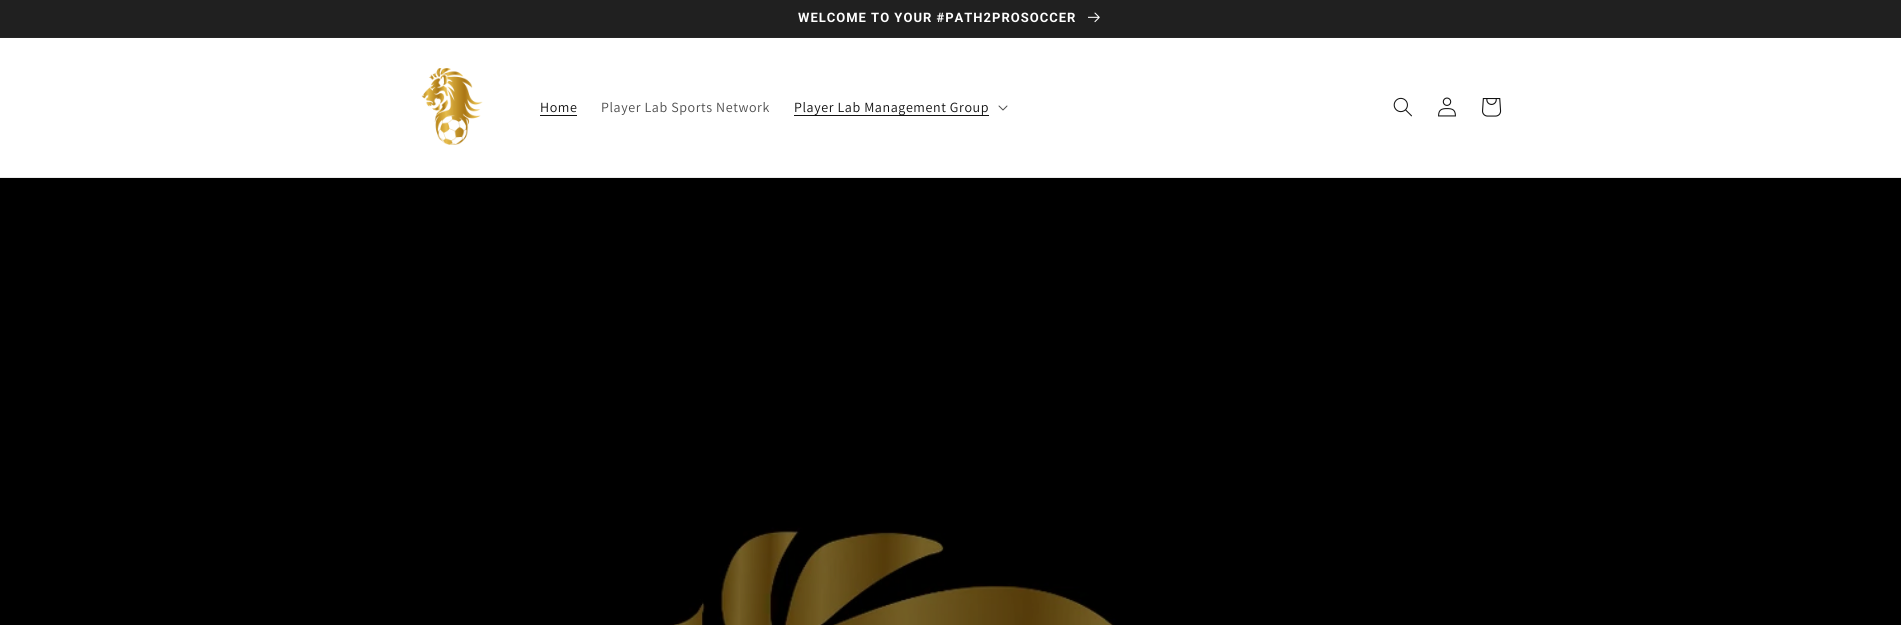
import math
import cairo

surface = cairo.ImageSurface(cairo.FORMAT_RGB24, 1901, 625)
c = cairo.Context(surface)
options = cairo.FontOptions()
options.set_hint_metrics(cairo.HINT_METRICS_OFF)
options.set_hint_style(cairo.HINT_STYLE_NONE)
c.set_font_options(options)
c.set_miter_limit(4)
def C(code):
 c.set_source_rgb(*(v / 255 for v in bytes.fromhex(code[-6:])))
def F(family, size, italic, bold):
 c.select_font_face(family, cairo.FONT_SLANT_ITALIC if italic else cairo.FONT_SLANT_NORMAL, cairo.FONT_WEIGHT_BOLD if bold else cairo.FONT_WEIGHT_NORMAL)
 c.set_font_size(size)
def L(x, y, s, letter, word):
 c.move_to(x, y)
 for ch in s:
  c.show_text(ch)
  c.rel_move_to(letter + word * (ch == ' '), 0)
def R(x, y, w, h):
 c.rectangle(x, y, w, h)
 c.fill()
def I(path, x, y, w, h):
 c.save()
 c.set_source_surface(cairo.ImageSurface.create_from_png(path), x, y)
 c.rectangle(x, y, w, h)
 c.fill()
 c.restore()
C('ffffff')
c.paint()
C('252525')
R(0,37,1901,1)
C('202020')
R(0,0,1901,37)
F('Roboto',13,0,1)
C('ffffff')
L(798,22,'WELCOME TO YOUR #PATH2PROSOCCER',1,0)
I('1.png',1088,12,12,11)
C('ececec')
R(0,177,1901,1)
I('2.png',421,68,62,77)
F('Assistant',14,0,0)
C('121212')
L(540,112,'Home',.6,0)
R(540,115,37,1)
C('4d4d4d')
L(601,112,'Player Lab Sports Network',.6,0)
C('121212')
R(794,115,195,1)
L(794,112,'Player Lab Management Group',.6,0)
I('3.png',998,105,10,6)
I('4.png',1393,97,19,20)
I('5.png',1438,97,18,20)
I('6.png',1482,98,20,19)
I('7.png',0,178,1901,447)
surface.write_to_png('o.png')
